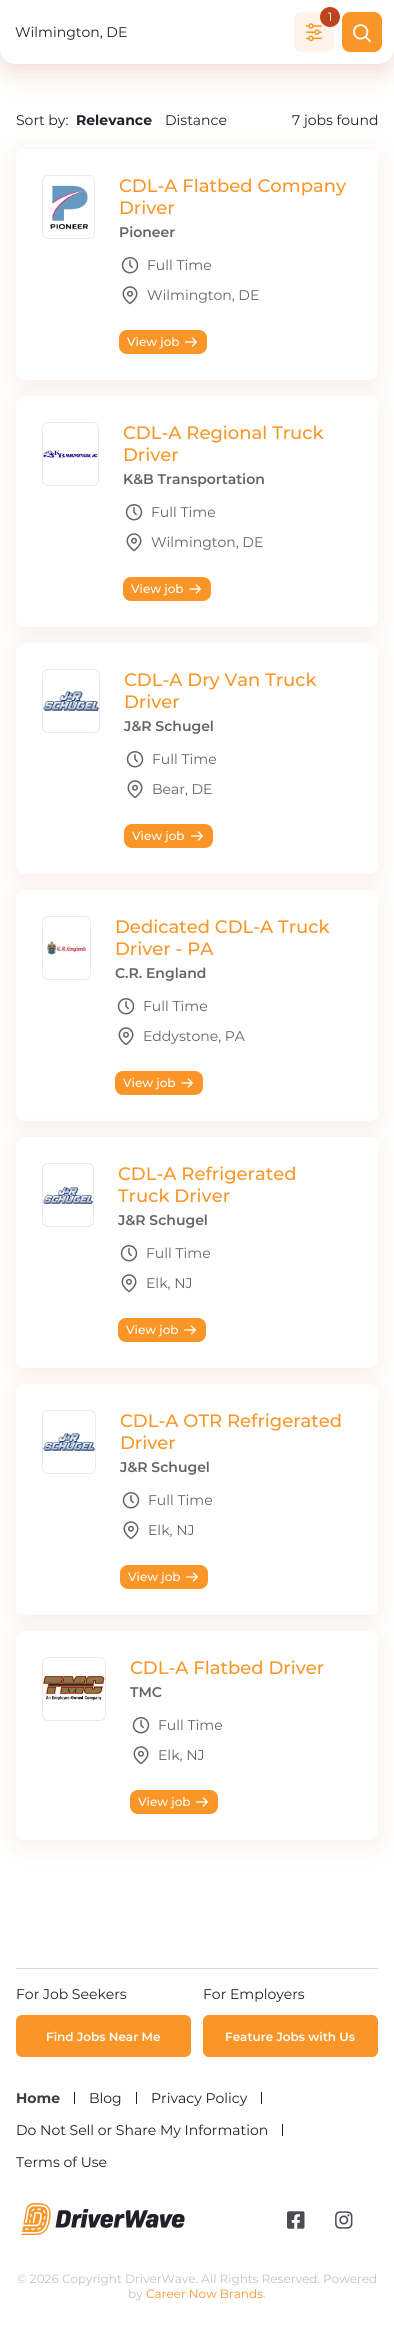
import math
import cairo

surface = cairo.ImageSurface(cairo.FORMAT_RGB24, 394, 2333)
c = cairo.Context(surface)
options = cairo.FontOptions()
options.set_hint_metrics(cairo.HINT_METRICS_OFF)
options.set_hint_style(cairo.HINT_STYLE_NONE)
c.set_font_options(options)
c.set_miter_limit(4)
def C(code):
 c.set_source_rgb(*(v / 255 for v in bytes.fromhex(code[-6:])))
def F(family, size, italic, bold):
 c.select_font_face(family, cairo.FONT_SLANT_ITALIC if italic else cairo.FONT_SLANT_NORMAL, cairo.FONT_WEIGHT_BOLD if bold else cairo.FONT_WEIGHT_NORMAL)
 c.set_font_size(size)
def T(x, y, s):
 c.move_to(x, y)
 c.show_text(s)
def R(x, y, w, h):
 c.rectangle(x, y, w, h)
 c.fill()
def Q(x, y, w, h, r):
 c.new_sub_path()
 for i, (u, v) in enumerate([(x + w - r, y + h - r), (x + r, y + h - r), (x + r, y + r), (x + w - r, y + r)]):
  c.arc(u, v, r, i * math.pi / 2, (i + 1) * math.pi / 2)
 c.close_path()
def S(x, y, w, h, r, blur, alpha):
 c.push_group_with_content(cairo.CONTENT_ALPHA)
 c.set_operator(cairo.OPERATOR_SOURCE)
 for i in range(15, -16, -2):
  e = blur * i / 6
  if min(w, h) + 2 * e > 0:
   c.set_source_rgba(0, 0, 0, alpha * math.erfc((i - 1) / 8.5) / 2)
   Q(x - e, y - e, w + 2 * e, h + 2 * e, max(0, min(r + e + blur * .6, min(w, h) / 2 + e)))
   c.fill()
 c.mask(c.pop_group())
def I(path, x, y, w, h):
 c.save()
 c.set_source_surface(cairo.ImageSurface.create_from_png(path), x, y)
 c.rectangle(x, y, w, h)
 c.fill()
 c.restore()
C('ffffff')
c.paint()
C('bf431d')
S(0,8,394,64,16,12.5,.2)
C('ffffff')
c.new_path()
c.move_to(0,0)
c.line_to(394,0)
c.line_to(394,48)
c.curve_to(394,57,387,64,378,64)
c.line_to(16,64)
c.curve_to(7,64,0,57,0,48)
c.close_path()
c.fill()
F('Montserrat',14,0,0)
C('202028')
T(15,37,'Wilmington, DE')
C('fef4e9')
Q(294,12,40,40,8)
c.fill()
I('1.png',306,23,16,19)
C('bf431d')
c.arc(330,17,10,0,2 * math.pi)
c.fill()
F('Montserrat',12,0,0)
C('ffffff')
T(328,21,'1')
C('fa9628')
Q(342,12,40,40,8)
c.fill()
I('2.png',353,24,18,19)
F('Montserrat',14,0,0)
C('202028')
T(16,125,'Sort by:')
F('Montserrat',14,0,1)
T(76,125,'Relevance')
F('Montserrat',14,0,0)
T(165,125,'Distance')
T(292,125,'7 jobs found')
C('bf431d')
S(16,153,362,231,8,12.5,.1)
C('ffffff')
Q(16,149,362,231,8)
c.fill()
Q(42.5,175.5,52,63,5.5)
C('ebebec')
c.set_line_width(1)
c.stroke()
I('3.png',50,185,39,45)
F('Montserrat Medium',18,0,0)
C('fa9628')
T(119,192,'CDL-A Flatbed Company')
T(119,214,'Driver')
F('Montserrat SemiBold',14,0,0)
C('636368')
T(119,237,'Pioneer')
I('4.png',121,257,18,17)
F('Montserrat',14,0,0)
T(147,270,'Full Time')
I('5.png',122,286,16,19)
T(147,300,'Wilmington, DE')
C('fa9628')
Q(119,330,88,24,8)
c.fill()
F('Montserrat Medium',12,0,0)
C('ffffff')
T(127,346,'View job')
I('6.png',185,337,12,10)
C('bf431d')
S(16,400,362,231,8,12.5,.1)
C('ffffff')
Q(16,396,362,231,8)
c.fill()
Q(42.5,422.5,56,63,5.5)
C('ebebec')
c.stroke()
I('7.png',43,450,55,8)
F('Montserrat Medium',18,0,0)
C('fa9628')
T(123,439,'CDL-A Regional Truck')
T(123,461,'Driver')
F('Montserrat SemiBold',14,0,0)
C('636368')
T(123,484,'K&B Transportation')
I('4.png',125,504,18,17)
F('Montserrat',14,0,0)
T(151,517,'Full Time')
I('5.png',126,533,16,19)
T(151,547,'Wilmington, DE')
C('fa9628')
Q(123,577,88,24,8)
c.fill()
F('Montserrat Medium',12,0,0)
C('ffffff')
T(131,593,'View job')
I('6.png',189,584,12,10)
C('bf431d')
S(16,647,362,231,8,12.5,.1)
C('ffffff')
Q(16,643,362,231,8)
c.fill()
Q(42.5,669.5,57,63,5.5)
C('ebebec')
c.stroke()
I('8.png',43,690,56,21)
F('Montserrat Medium',18,0,0)
C('fa9628')
T(124,686,'CDL-A Dry Van Truck')
T(124,708,'Driver')
F('Montserrat SemiBold',14,0,0)
C('636368')
T(124,731,'J&R Schugel')
I('4.png',126,751,18,17)
F('Montserrat',14,0,0)
T(152,764,'Full Time')
I('5.png',127,780,16,19)
T(152,794,'Bear, DE')
C('fa9628')
Q(124,824,89,24,8)
c.fill()
F('Montserrat Medium',12,0,0)
C('ffffff')
T(132,840,'View job')
I('6.png',191,831,12,10)
C('bf431d')
S(16,894,362,231,8,12.5,.1)
C('ffffff')
Q(16,890,362,231,8)
c.fill()
Q(42.5,916.5,48,63,5.5)
C('ebebec')
c.stroke()
I('9.png',47,941,39,14)
F('Montserrat Medium',18,0,0)
C('fa9628')
T(115,933,'Dedicated CDL-A Truck')
T(115,955,'Driver - PA')
F('Montserrat SemiBold',14,0,0)
C('636368')
T(115,978,'C.R. England')
I('4.png',117,998,18,17)
F('Montserrat',14,0,0)
T(143,1011,'Full Time')
I('5.png',118,1027,16,19)
T(143,1041,'Eddystone, PA')
C('fa9628')
Q(115,1071,88,24,8)
c.fill()
F('Montserrat Medium',12,0,0)
C('ffffff')
T(123,1087,'View job')
I('6.png',181,1078,12,10)
C('bf431d')
S(16,1141,362,231,8,12.5,.1)
C('ffffff')
Q(16,1137,362,231,8)
c.fill()
Q(42.5,1163.5,51,63,5.5)
C('ebebec')
c.stroke()
I('10.png',43,1186,50,18)
F('Montserrat Medium',18,0,0)
C('fa9628')
T(118,1180,'CDL-A Refrigerated')
T(118,1202,'Truck Driver')
F('Montserrat SemiBold',14,0,0)
C('636368')
T(118,1225,'J&R Schugel')
I('4.png',120,1245,18,17)
F('Montserrat',14,0,0)
T(146,1258,'Full Time')
I('5.png',121,1274,16,19)
T(146,1288,'Elk, NJ')
C('fa9628')
Q(118,1318,88,24,8)
c.fill()
F('Montserrat Medium',12,0,0)
C('ffffff')
T(126,1334,'View job')
I('6.png',184,1325,12,10)
C('bf431d')
S(16,1388,362,231,8,12.5,.1)
C('ffffff')
Q(16,1384,362,231,8)
c.fill()
Q(42.5,1410.5,53,63,5.5)
C('ebebec')
c.stroke()
I('11.png',43,1432,52,19)
F('Montserrat Medium',18,0,0)
C('fa9628')
T(120,1427,'CDL-A OTR Refrigerated')
T(120,1449,'Driver')
F('Montserrat SemiBold',14,0,0)
C('636368')
T(120,1472,'J&R Schugel')
I('4.png',122,1492,18,17)
F('Montserrat',14,0,0)
T(148,1505,'Full Time')
I('5.png',123,1521,16,19)
T(148,1535,'Elk, NJ')
C('fa9628')
Q(120,1565,88,24,8)
c.fill()
F('Montserrat Medium',12,0,0)
C('ffffff')
T(128,1581,'View job')
I('6.png',186,1572,12,10)
C('bf431d')
S(16,1635,362,209,8,12.5,.1)
C('ffffff')
Q(16,1631,362,209,8)
c.fill()
Q(42.5,1657.5,63,63,5.5)
C('ebebec')
c.stroke()
I('12.png',43,1676,62,25)
F('Montserrat Medium',18,0,0)
C('fa9628')
T(130,1674,'CDL-A Flatbed Driver')
F('Montserrat SemiBold',14,0,0)
C('636368')
T(130,1697,'TMC')
I('4.png',132,1717,18,17)
F('Montserrat',14,0,0)
T(158,1730,'Full Time')
I('5.png',133,1746,16,19)
T(158,1760,'Elk, NJ')
C('fa9628')
Q(130,1790,88,24,8)
c.fill()
F('Montserrat Medium',12,0,0)
C('ffffff')
T(138,1806,'View job')
I('6.png',196,1797,12,10)
C('d8d8db')
R(16,1968,362,1)
F('Montserrat',14,0,0)
C('202028')
T(16,1999,'For Job Seekers')
C('fa9628')
Q(16,2015,175,42,6)
c.fill()
F('Montserrat SemiBold',12,0,0)
C('ffffff')
T(46,2041,'Find Jobs Near Me')
F('Montserrat',14,0,0)
C('202028')
T(203,1999,'For Employers')
C('fa9628')
Q(203,2015,175,42,6)
c.fill()
F('Montserrat SemiBold',12,0,0)
C('ffffff')
T(225,2041,'Feature Jobs with Us')
F('Montserrat',14,0,1)
C('3e3d46')
T(16,2103,'Home')
C('202028')
R(74,2092,1,12)
F('Montserrat',14,0,0)
T(89,2103,'Blog')
R(136,2092,1,12)
T(151,2103,'Privacy Policy')
R(261,2092,1,12)
T(16,2135,'Do Not Sell or Share My Information')
R(282,2124,1,12)
T(16,2167,'Terms of Use')
I('13.png',21,2203,164,32)
I('14.png',287,2211,18,18)
I('15.png',335,2211,18,18)
F('Montserrat',12,0,0)
C('c1c1c7')
T(17,2283,'© 2026 Copyright DriverWave. All Rights Reserved. Powered')
T(128,2298,'by')
C('fa9628')
T(146,2298,'Career Now Brands')
C('c1c1c7')
T(263,2298,'.')
surface.write_to_png('o.png')
